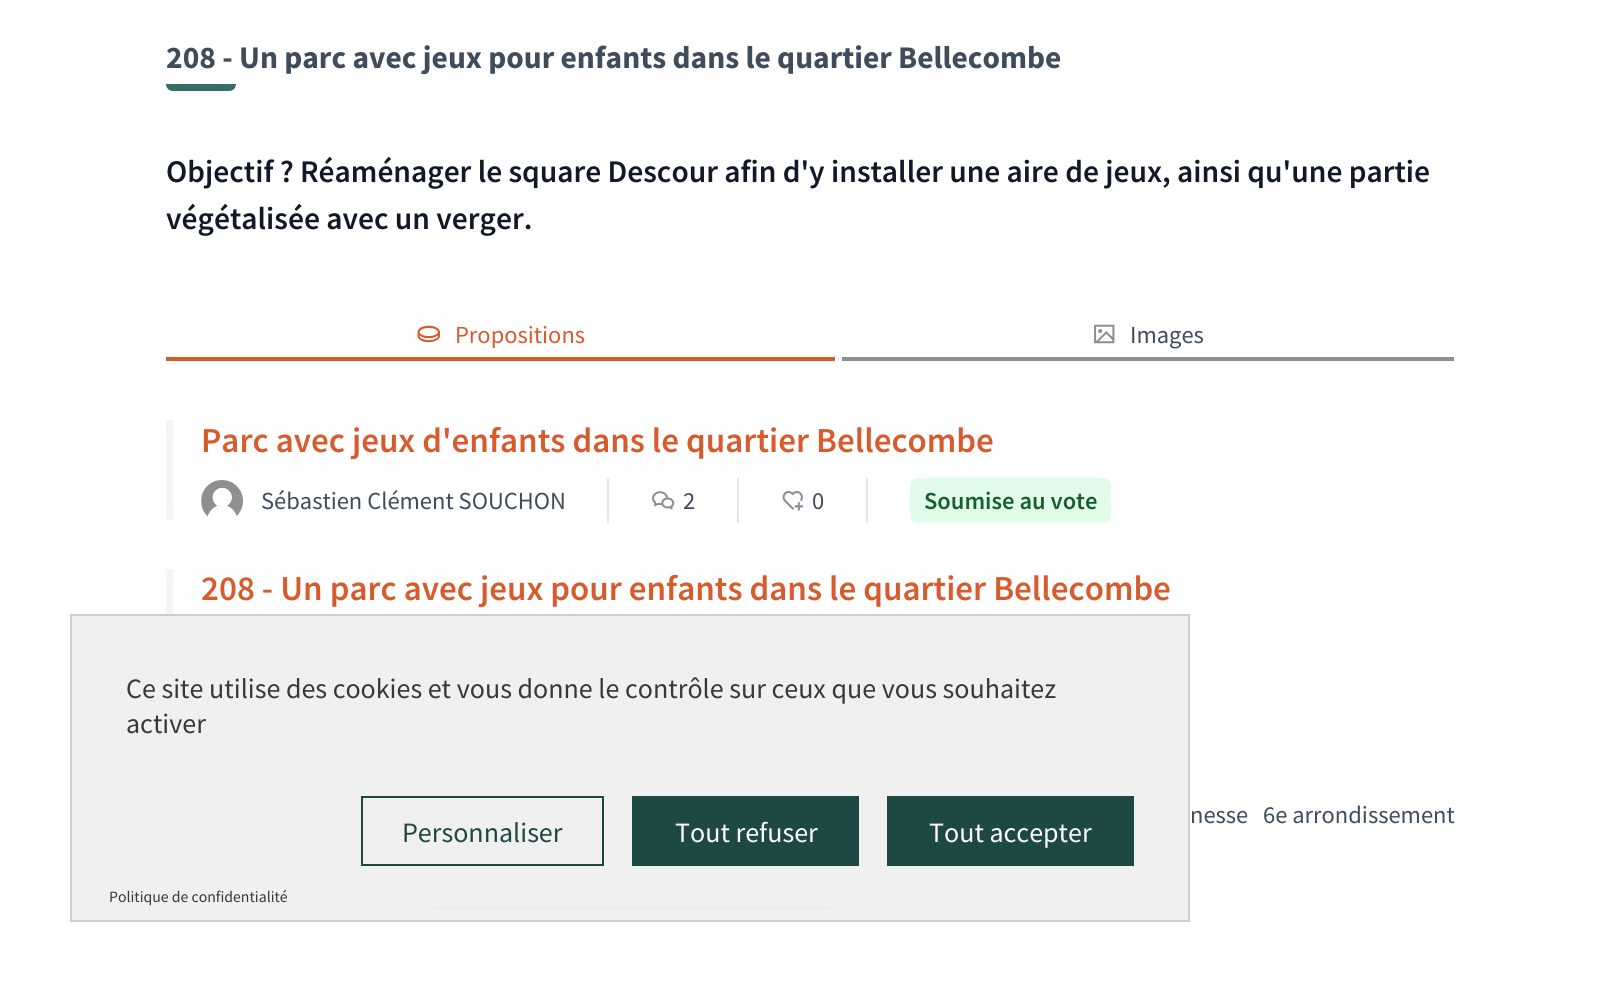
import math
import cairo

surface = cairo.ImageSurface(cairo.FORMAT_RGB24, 1619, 992)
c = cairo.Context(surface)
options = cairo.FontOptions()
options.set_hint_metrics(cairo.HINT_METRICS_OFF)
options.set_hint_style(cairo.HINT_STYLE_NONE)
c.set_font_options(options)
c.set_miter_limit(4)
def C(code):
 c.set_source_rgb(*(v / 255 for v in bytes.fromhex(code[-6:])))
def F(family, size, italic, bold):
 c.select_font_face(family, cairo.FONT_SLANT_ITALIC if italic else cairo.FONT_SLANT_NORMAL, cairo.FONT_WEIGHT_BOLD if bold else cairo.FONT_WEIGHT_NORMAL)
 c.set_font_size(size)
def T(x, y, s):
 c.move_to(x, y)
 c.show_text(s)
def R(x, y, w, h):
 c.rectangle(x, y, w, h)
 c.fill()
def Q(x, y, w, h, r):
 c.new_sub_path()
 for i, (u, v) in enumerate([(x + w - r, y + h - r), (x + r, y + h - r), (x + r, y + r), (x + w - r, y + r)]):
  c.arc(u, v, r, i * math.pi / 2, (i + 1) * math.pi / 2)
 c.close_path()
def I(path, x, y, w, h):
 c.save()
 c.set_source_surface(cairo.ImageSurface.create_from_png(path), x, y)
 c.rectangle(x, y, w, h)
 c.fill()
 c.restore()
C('ffffff')
c.paint()
F('Source Sans Pro',31.5,0,1)
C('3e4c5c')
T(166,68,'208 - Un parc avec jeux pour enfants dans le quartier Bellecombe')
C('3a6d67')
c.new_path()
c.move_to(166,84)
c.line_to(236,84)
c.curve_to(236,88,233,91,229,91)
c.line_to(173,91)
c.curve_to(169,91,166,88,166,84)
c.close_path()
c.fill()
F('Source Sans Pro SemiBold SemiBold',31.5,0,0)
C('111827')
T(166,182,'Objectif ? Réaménager le square Descour afin d\'y installer une aire de jeux, ainsi qu\'une partie')
T(166,229,'végétalisée avec un verger.')
C('d75b2d')
R(166,357,669,4)
I('1.png',417,325,23,18)
F('Source Sans Pro',24.5,0,0)
T(455,343,'Propositions')
C('898e99')
R(842,357,612,4)
I('2.png',1094,324,21,20)
C('3e4c5c')
T(1130,343,'Images')
C('f3f4f7')
R(166,420,7,100)
F('Source Sans Pro SemiBold SemiBold',35,0,0)
C('d75b2d')
T(201,452,'Parc avec jeux d\'enfants dans le quartier Bellecombe')
C('e1e5ef')
R(607,478,2,45)
I('3.png',201,480,42,37)
F('Source Sans Pro',24.5,0,0)
C('3e4c5c')
T(261,509,'Sébastien Clément SOUCHON')
C('e1e5ef')
R(737,478,2,45)
I('4.png',652,491,23,19)
C('3e4c5c')
T(683,509,'2')
C('e1e5ef')
R(866,478,2,45)
I('5.png',782,491,21,20)
C('3e4c5c')
T(812,509,'0')
C('e3fce9')
Q(910,478,201,45,7)
c.fill()
F('Source Sans Pro SemiBold SemiBold',24.5,0,0)
C('15602c')
T(924,509,'Soumise au vote')
C('f3f4f7')
R(166,569,7,45)
F('Source Sans Pro SemiBold SemiBold',35,0,0)
C('d75b2d')
T(201,600,'208 - Un parc avec jeux pour enfants dans le quartier Bellecombe')
F('Source Sans Pro',24.5,0,0)
C('3e4c5c')
T(1190,823,'nesse')
T(1263,823,'6e arrondissement')
C('f0f0f0')
R(72,625,1116,280)
gradient = cairo.RadialGradient(0,0,0,0,0,1)
gradient.set_matrix(cairo.Matrix(1 / 560, 0, 0, 1 / 18, -1 * 630 / 560, -1 * 922 / 18))
gradient.add_color_stop_rgba(0,0.537,0.537,0.537,1)
gradient.add_color_stop_rgba(1,0.941,0.941,0.941,1)
c.set_source(gradient)
R(72,905,1116,6)
gradient = cairo.LinearGradient(630,891,630,922)
gradient.add_color_stop_rgba(0,0.941,0.941,0.941,0)
gradient.add_color_stop_rgba(.66,0.941,0.941,0.941,1)
c.set_source(gradient)
R(72,905,1116,15)
gradient = cairo.LinearGradient(630,614,630,646)
gradient.add_color_stop_rgba(.33,0.941,0.941,0.941,1)
gradient.add_color_stop_rgba(1,0.941,0.941,0.941,0)
c.set_source(gradient)
R(72,616,1116,9)
c.rectangle(71,615,1118,306)
C('cecece')
c.stroke()
F('Source Sans Pro',28,0,0)
C('383838')
T(126,698,'Ce site utilise des cookies et vous donne le contrôle sur ceux que vous souhaitez')
T(126,733,'activer')
c.rectangle(362,797,241,68)
C('1e4843')
c.stroke()
T(402,842,'Personnaliser')
R(632,796,227,70)
C('ffffff')
T(675,842,'Tout refuser')
C('1e4843')
R(887,796,247,70)
C('ffffff')
T(929,842,'Tout accepter')
F('Source Sans Pro',15.75,0,0)
C('383838')
T(109,902,'Politique de confidentialité')
surface.write_to_png('o.png')
